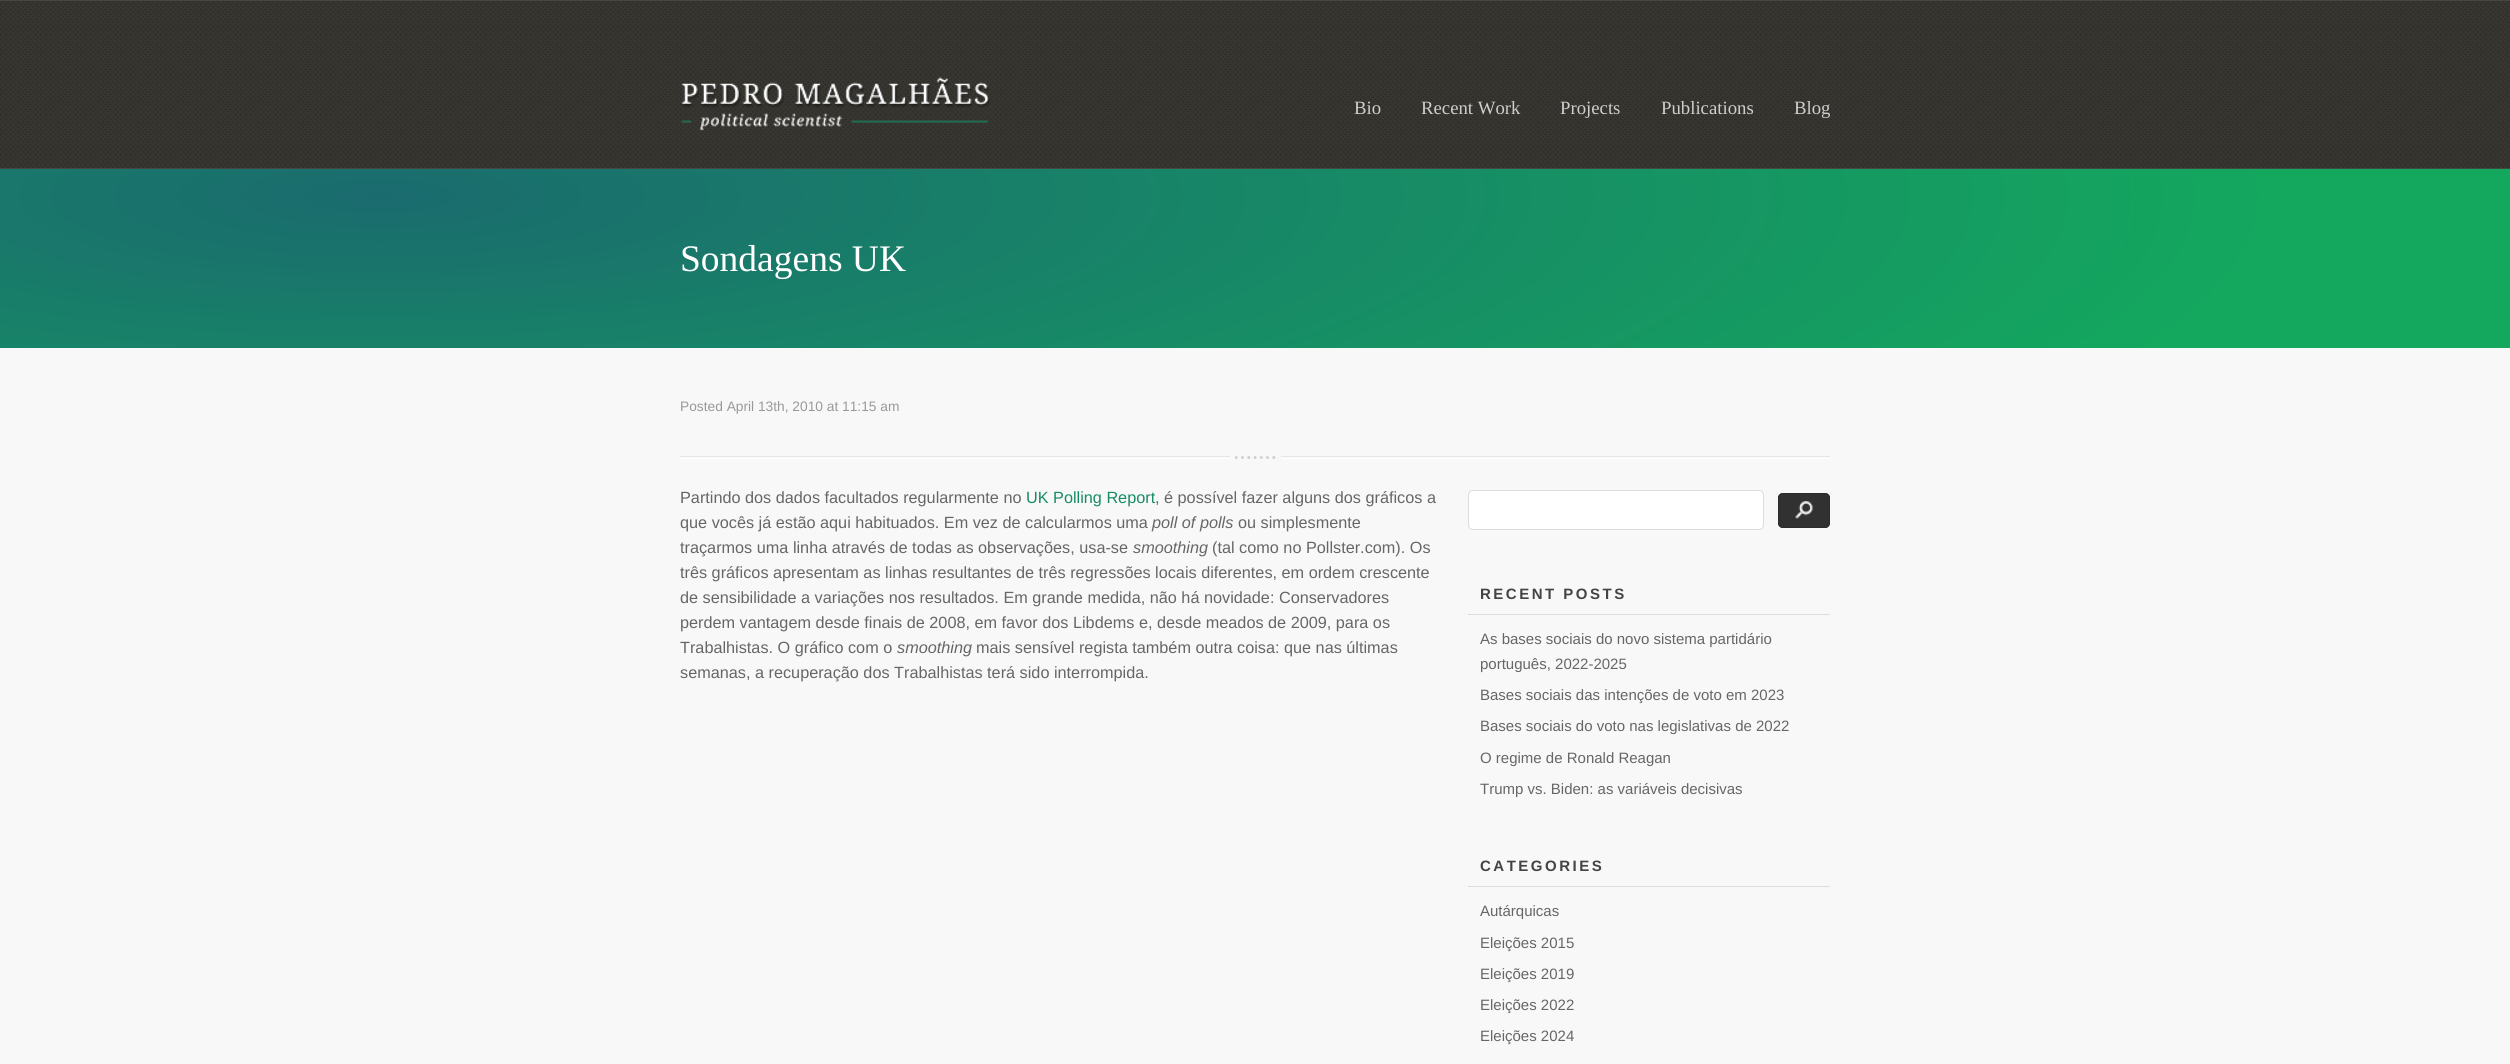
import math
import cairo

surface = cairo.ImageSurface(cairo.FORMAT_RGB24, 2510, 1064)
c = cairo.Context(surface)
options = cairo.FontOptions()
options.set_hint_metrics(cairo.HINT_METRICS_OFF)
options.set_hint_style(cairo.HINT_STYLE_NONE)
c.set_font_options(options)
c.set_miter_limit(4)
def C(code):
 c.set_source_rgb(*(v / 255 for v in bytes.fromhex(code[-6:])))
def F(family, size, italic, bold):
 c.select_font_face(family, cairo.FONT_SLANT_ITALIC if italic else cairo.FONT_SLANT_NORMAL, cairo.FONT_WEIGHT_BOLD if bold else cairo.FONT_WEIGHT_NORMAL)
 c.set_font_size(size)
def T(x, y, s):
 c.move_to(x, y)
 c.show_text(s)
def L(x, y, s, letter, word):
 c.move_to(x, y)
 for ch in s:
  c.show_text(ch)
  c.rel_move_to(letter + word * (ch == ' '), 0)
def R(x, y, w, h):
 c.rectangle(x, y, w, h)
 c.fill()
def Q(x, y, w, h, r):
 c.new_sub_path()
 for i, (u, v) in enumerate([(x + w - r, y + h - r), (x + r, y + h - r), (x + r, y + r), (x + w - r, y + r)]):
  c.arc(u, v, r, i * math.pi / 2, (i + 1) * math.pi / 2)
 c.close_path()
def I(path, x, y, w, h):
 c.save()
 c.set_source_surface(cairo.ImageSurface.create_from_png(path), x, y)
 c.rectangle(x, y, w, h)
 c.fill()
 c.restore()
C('f8f8f8')
c.paint()
I('2.png',0,1,2510,167)
I('1.png',681,77,309,54)
C('464743')
R(0,0,2510,1)
R(0,168,2510,1)
F('Liberation Serif',18.75,0,0)
C('cecece')
T(1354,114,'Bio')
T(1421,114,'Recent Work')
T(1560,114,'Projects')
T(1661,114,'Publications')
T(1794,114,'Blog')
gradient = cairo.RadialGradient(0,0,0,0,0,1)
gradient.set_matrix(cairo.Matrix(1 / 1933, 0, 0, 1 / 443, -1 * 377 / 1933, -1 * 196 / 443))
gradient.add_color_stop_rgba(0,0.102,0.42,0.431,1)
gradient.add_color_stop_rgba(1,0.078,0.659,0.369,1)
c.set_source(gradient)
R(0,169,2510,179)
F('Liberation Serif',37.5,0,0)
C('ffffff')
T(680,271,'Sondagens UK')
F('Liberation Sans',13.75,0,0)
C('999999')
T(680,411,'Posted April 13th, 2010 at 11:15 am')
C('e6e6e6')
R(680,456,1150,1)
C('ffffff')
R(680,458,1150,1)
C('f8f8f8')
R(1230,456,51,3)
I('3.png',1235,456,41,3)
F('Liberation Sans',16.25,0,0)
C('666666')
T(680,503,'Partindo dos dados facultados regularmente no')
C('178b66')
T(1026,503,'UK Polling Report')
C('666666')
T(1155,503,', é possível fazer alguns dos gráficos a')
T(680,528,'que vocês já estão aqui habituados. Em vez de calcularmos uma')
F('Liberation Sans',16.25,1,0)
T(1152,528,'poll of polls')
F('Liberation Sans',16.25,0,0)
T(1238,528,'ou simplesmente')
T(680,553,'traçarmos uma linha através de todas as observações, usa-se')
F('Liberation Sans',16.25,1,0)
T(1133,553,'smoothing')
F('Liberation Sans',16.25,0,0)
T(1212,553,'(tal como no Pollster.com). Os')
T(680,578,'três gráficos apresentam as linhas resultantes de três regressões locais diferentes, em ordem crescente')
T(680,603,'de sensibilidade a variações nos resultados. Em grande medida, não há novidade: Conservadores')
T(680,628,'perdem vantagem desde finais de 2008, em favor dos Libdems e, desde meados de 2009, para os')
T(680,653,'Trabalhistas. O gráfico com o')
F('Liberation Sans',16.25,1,0)
T(897,653,'smoothing')
F('Liberation Sans',16.25,0,0)
T(976,653,'mais sensível regista também outra coisa: que nas últimas')
T(680,678,'semanas, a recuperação dos Trabalhistas terá sido interrompida.')
C('ffffff')
Q(1468.5,490.5,295,39,4.5)
c.fill_preserve()
C('dddddd')
c.set_line_width(1)
c.stroke()
C('313131')
Q(1778,493,52,35,5)
c.fill()
I('4.png',1795,501,18,18)
Q(1778.5,493.5,51,34,4.5)
C('2c2c2c')
c.stroke()
C('dddddd')
R(1468,614,362,1)
F('Liberation Sans',15,0,1)
C('444444')
L(1480,599,'RECENT POSTS',2.5,0)
F('Liberation Sans',15,0,0)
C('666666')
T(1480,644,'As bases sociais do novo sistema partidário')
T(1480,669,'português, 2022-2025')
T(1480,700,'Bases sociais das intenções de voto em 2023')
T(1480,731,'Bases sociais do voto nas legislativas de 2022')
T(1480,763,'O regime de Ronald Reagan')
T(1480,794,'Trump vs. Biden: as variáveis decisivas')
C('dddddd')
R(1468,886,362,1)
F('Liberation Sans',15,0,1)
C('444444')
L(1480,871,'CATEGORIES',2.5,0)
F('Liberation Sans',15,0,0)
C('666666')
T(1480,916,'Autárquicas')
T(1480,948,'Eleições 2015')
T(1480,979,'Eleições 2019')
T(1480,1010,'Eleições 2022')
T(1480,1041,'Eleições 2024')
surface.write_to_png('o.png')
